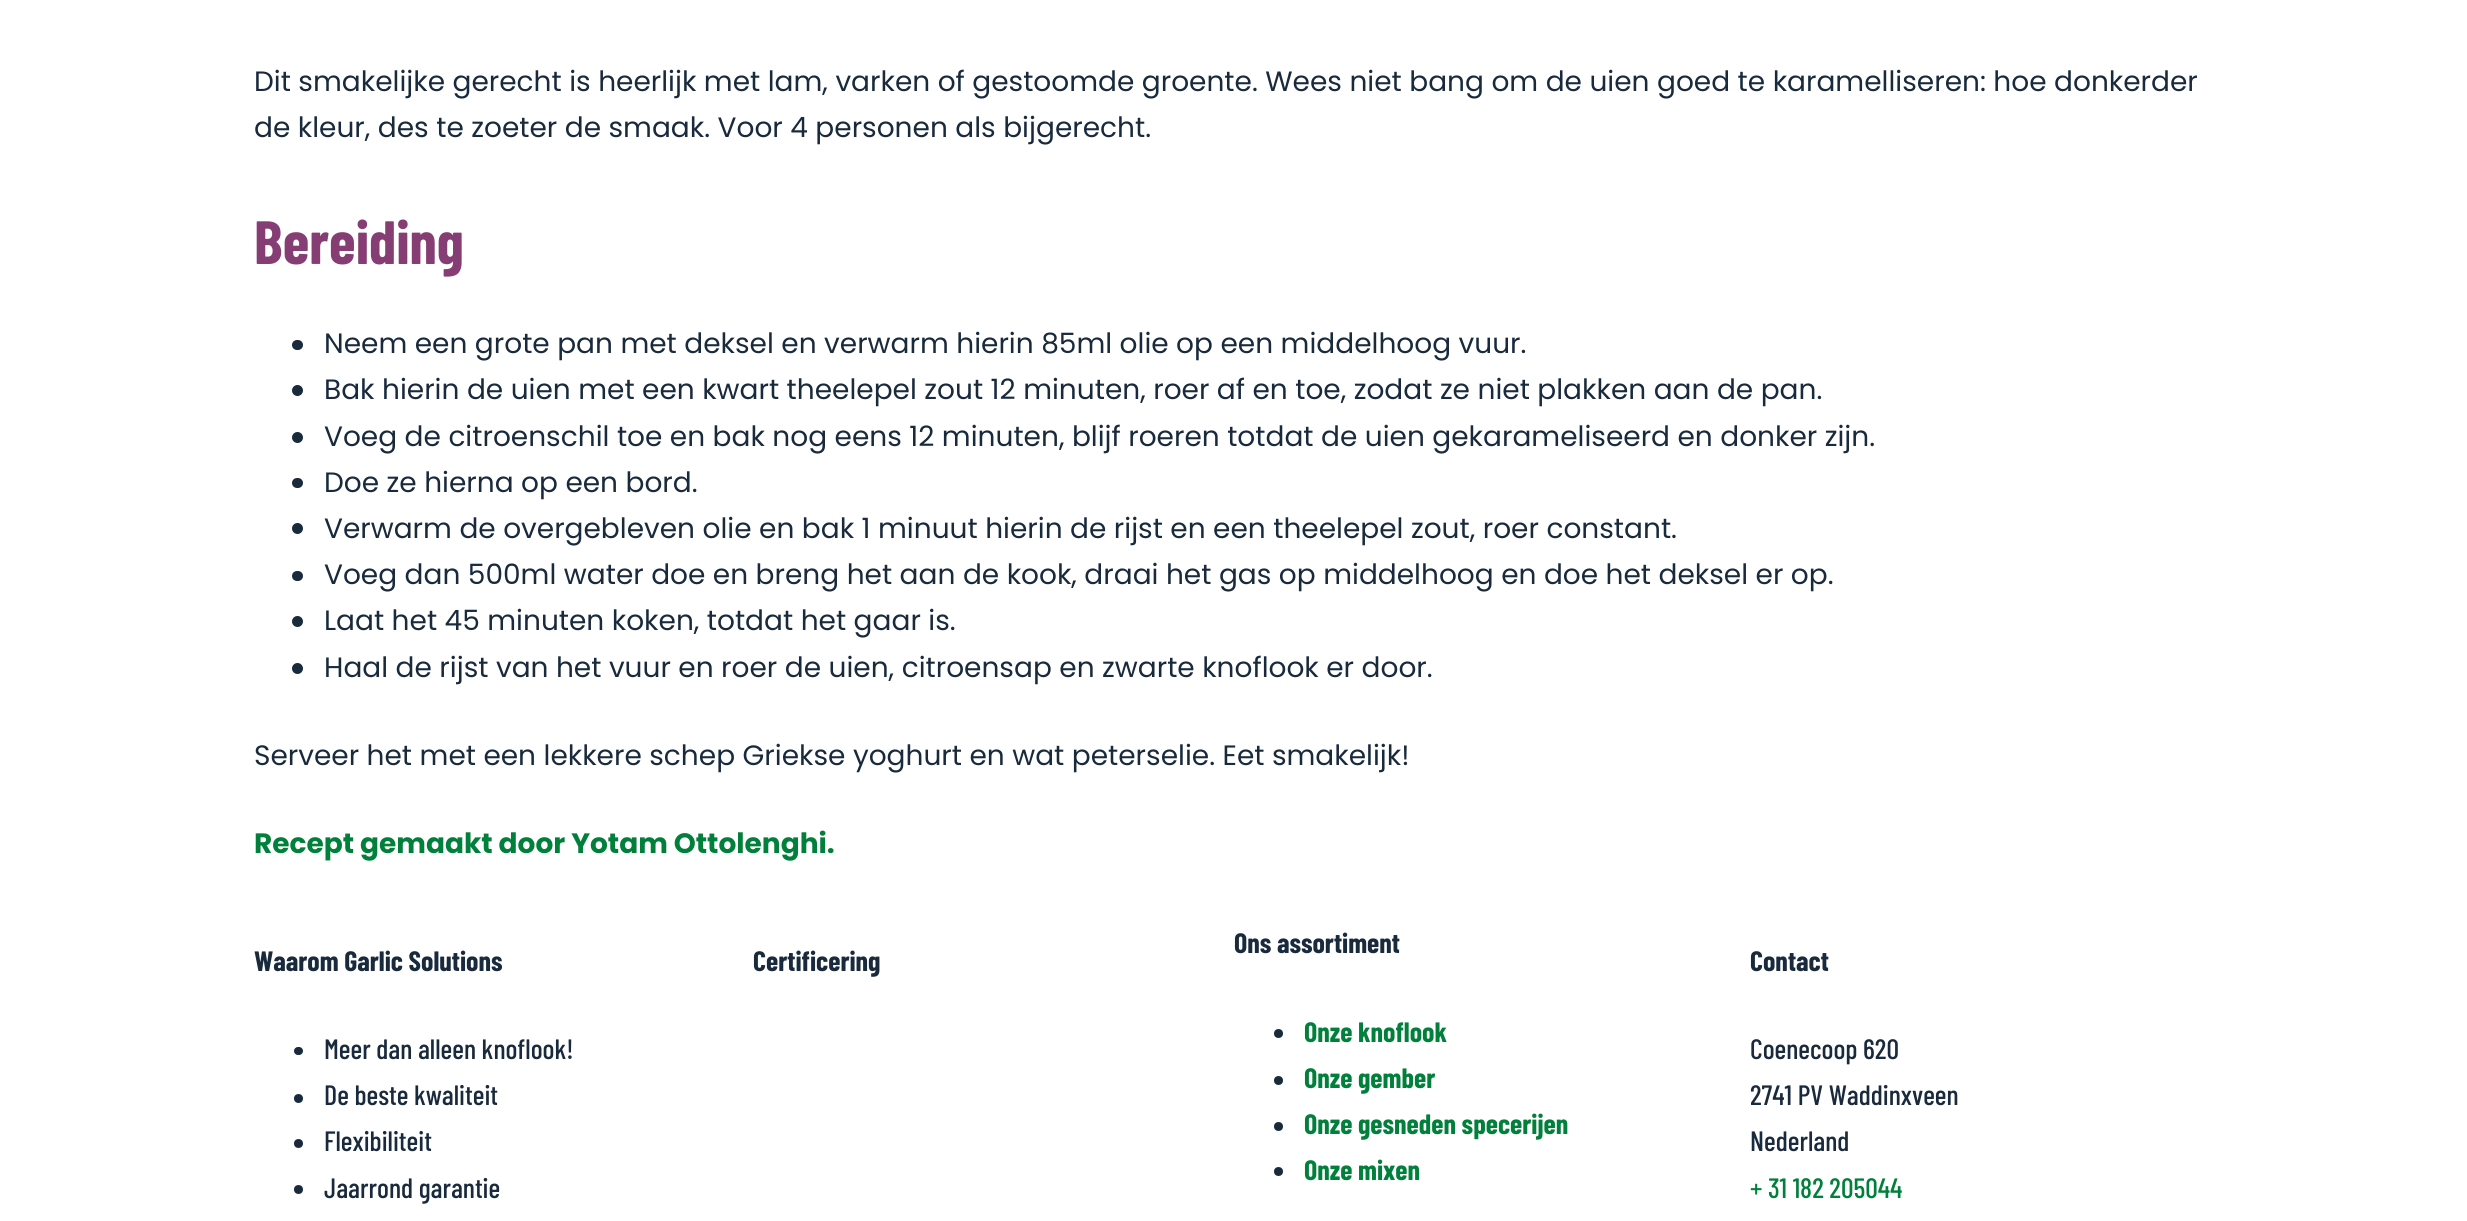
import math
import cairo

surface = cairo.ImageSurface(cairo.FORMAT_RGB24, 2467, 1221)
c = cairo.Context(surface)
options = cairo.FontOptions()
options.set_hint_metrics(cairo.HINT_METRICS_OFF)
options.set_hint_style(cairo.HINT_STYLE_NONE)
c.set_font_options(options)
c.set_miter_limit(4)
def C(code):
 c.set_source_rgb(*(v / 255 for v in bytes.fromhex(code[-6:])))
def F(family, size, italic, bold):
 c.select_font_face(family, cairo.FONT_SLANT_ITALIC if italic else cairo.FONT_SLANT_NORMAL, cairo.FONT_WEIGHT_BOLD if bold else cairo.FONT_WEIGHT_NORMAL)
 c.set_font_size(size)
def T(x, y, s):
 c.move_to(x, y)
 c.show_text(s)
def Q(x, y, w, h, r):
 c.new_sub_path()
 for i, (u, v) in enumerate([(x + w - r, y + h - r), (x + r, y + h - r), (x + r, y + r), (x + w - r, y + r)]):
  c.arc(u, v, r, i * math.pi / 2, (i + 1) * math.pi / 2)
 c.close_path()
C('ffffff')
c.paint()
F('Poppins',28,0,0)
C('192a3d')
T(254,91,'Dit smakelijke gerecht is heerlijk met lam, varken of gestoomde groente. Wees niet bang om de uien goed te karamelliseren: hoe donkerder')
T(254,137,'de kleur, des te zoeter de smaak. Voor 4 personen als bijgerecht.')
F('Barlow Condensed',61,0,1)
C('863d73')
T(254,264,'Bereiding')
C('192a3d')
Q(292,340,11,10,5)
c.fill()
F('Poppins',28,0,0)
T(324,353,'Neem een grote pan met deksel en verwarm hierin 85ml olie op een middelhoog vuur.')
c.new_path()
c.arc(297.5,390.5,5.5,0,2 * math.pi)
c.fill()
T(324,399,'Bak hierin de uien met een kwart theelepel zout 12 minuten, roer af en toe, zodat ze niet plakken aan de pan.')
c.new_path()
c.arc(297.5,437.5,5.5,0,2 * math.pi)
c.fill()
T(324,446,'Voeg de citroenschil toe en bak nog eens 12 minuten, blijf roeren totdat de uien gekarameliseerd en donker zijn.')
Q(292,478,11,10,5)
c.fill()
T(324,492,'Doe ze hierna op een bord.')
c.new_path()
c.arc(297.5,528.5,5.5,0,2 * math.pi)
c.fill()
T(324,538,'Verwarm de overgebleven olie en bak 1 minuut hierin de rijst en een theelepel zout, roer constant.')
Q(292,571,11,10,5)
c.fill()
T(324,584,'Voeg dan 500ml water doe en breng het aan de kook, draai het gas op middelhoog en doe het deksel er op.')
c.new_path()
c.arc(297.5,621.5,5.5,0,2 * math.pi)
c.fill()
T(324,630,'Laat het 45 minuten koken, totdat het gaar is.')
c.new_path()
c.arc(297.5,668.5,5.5,0,2 * math.pi)
c.fill()
T(324,677,'Haal de rijst van het vuur en roer de uien, citroensap en zwarte knoflook er door.')
T(254,765,'Serveer het met een lekkere schep Griekse yoghurt en wat peterselie. Eet smakelijk!')
F('Poppins',28,0,1)
C('01803b')
T(254,853,'Recept gemaakt door Yotam Ottolenghi.')
F('Barlow Condensed',28,0,1)
C('192a3d')
T(254,971,'Waarom Garlic Solutions')
Q(294,1047,9,8,4)
c.fill()
F('Barlow Condensed Medium',28,0,0)
T(324,1059,'Meer dan alleen knoflook!')
c.new_path()
c.arc(298.5,1098.5,4.5,0,2 * math.pi)
c.fill()
T(324,1105,'De beste kwaliteit')
c.new_path()
c.arc(298.5,1143.5,4.5,0,2 * math.pi)
c.fill()
T(324,1151,'Flexibiliteit')
c.new_path()
c.arc(298.5,1189.5,4.5,0,2 * math.pi)
c.fill()
T(324,1198,'Jaarrond garantie')
F('Barlow Condensed',28,0,1)
T(753,971,'Certificering')
T(1234,953,'Ons assortiment')
c.new_path()
c.arc(1278.5,1033.5,4.5,0,2 * math.pi)
c.fill()
C('01803b')
T(1304,1042,'Onze knoflook')
C('192a3d')
c.new_path()
c.arc(1278.5,1080.5,4.5,0,2 * math.pi)
c.fill()
C('01803b')
T(1304,1088,'Onze gember')
C('192a3d')
c.new_path()
c.arc(1278.5,1126.5,4.5,0,2 * math.pi)
c.fill()
C('01803b')
T(1304,1134,'Onze gesneden specerijen')
C('192a3d')
c.new_path()
c.arc(1278.5,1171.5,4.5,0,2 * math.pi)
c.fill()
C('01803b')
T(1304,1180,'Onze mixen')
C('192a3d')
T(1750,971,'Contact')
F('Barlow Condensed Medium',28,0,0)
T(1750,1059,'Coenecoop 620')
T(1750,1105,'2741 PV Waddinxveen')
T(1750,1151,'Nederland')
C('01803b')
T(1750,1198,'+ 31 182 205044')
surface.write_to_png('o.png')
